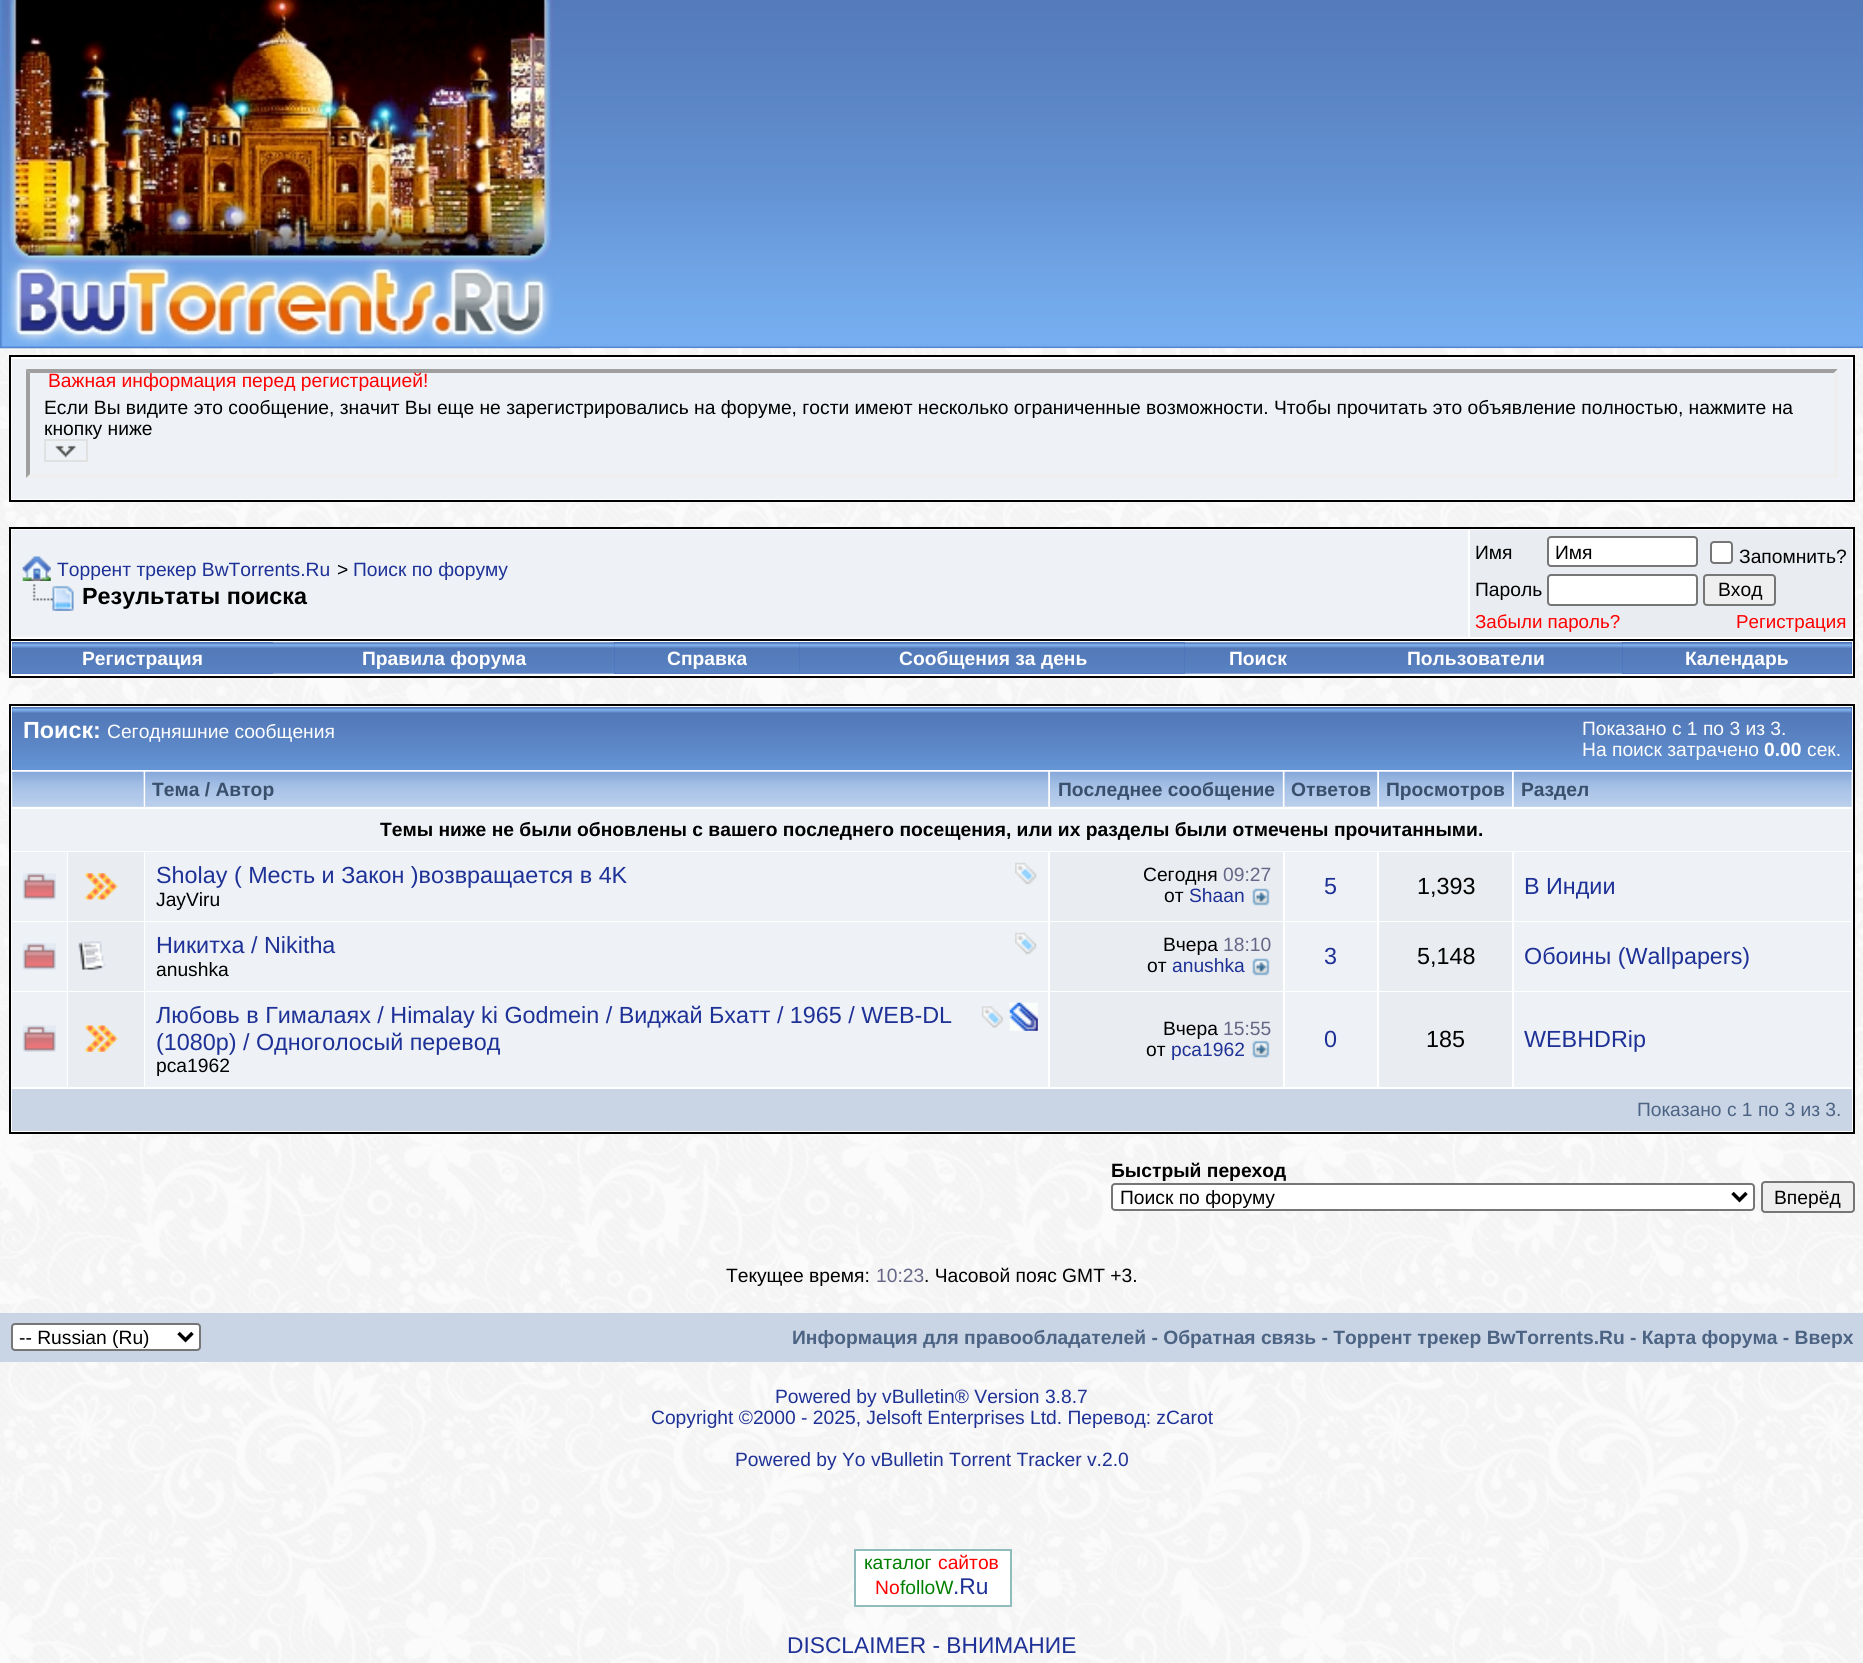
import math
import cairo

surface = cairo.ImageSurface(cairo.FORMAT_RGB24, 1863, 1663)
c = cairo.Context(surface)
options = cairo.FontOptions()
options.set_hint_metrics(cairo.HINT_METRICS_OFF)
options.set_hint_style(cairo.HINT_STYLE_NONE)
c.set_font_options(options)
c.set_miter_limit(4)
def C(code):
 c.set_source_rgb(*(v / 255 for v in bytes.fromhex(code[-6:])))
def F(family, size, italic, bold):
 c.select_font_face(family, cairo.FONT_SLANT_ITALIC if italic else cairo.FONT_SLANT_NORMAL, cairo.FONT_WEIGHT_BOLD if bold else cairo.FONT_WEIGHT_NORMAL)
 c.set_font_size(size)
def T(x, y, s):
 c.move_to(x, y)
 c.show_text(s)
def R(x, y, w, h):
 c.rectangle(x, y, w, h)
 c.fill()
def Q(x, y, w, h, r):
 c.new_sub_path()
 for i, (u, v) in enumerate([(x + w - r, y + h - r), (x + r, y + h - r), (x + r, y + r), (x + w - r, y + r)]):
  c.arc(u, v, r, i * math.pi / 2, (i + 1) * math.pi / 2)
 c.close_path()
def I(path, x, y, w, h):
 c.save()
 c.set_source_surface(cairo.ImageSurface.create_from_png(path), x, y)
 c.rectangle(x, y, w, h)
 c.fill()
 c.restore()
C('ffffff')
c.paint()
I('1.png',0,348,1863,1315)
I('2.png',0,0,1863,349)
I('4.png',0,348,1863,965)
I('3.png',0,0,560,349)
C('ffffff')
c.rectangle(10,356,1844,145)
c.fill_preserve()
C('000000')
c.stroke()
C('eef2f7')
R(12,359,1840,140)
C('9f9f9f')
c.new_path()
c.move_to(26,369)
c.line_to(1838,369)
c.line_to(1834,373)
c.line_to(30,373)
c.close_path()
c.fill()
C('efefef')
c.new_path()
c.move_to(1838,369)
c.line_to(1838,478)
c.line_to(1834,474)
c.line_to(1834,373)
c.close_path()
c.fill()
c.new_path()
c.move_to(1838,478)
c.line_to(26,478)
c.line_to(30,474)
c.line_to(1834,474)
c.close_path()
c.fill()
C('9f9f9f')
c.new_path()
c.move_to(26,478)
c.line_to(26,369)
c.line_to(30,373)
c.line_to(30,474)
c.close_path()
c.fill()
F('Liberation Sans',19.25,0,0)
C('ff0000')
T(48,387,'Важная информация перед регистрацией!')
C('000000')
T(44,414,'Если Вы видите это сообщение, значит Вы еще не зарегистрировались на форуме, гости имеют несколько ограниченные возможности. Чтобы прочитать это объявление полностью, нажмите на')
T(44,435,'кнопку ниже')
c.rectangle(45,440,42,21)
C('e1e1e2')
c.stroke()
I('5.png',55,445,21,13)
C('ffffff')
c.rectangle(10,528,1844,112)
c.fill_preserve()
C('000000')
c.stroke()
C('eef2f7')
R(12,530,1456,107)
I('6.png',22,556,29,25)
C('1e3196')
T(57,576,'Торрент трекер BwTorrents.Ru')
C('000000')
T(337,576,'>')
C('1e3196')
T(353,576,'Поиск по форуму')
I('7.png',32,584,42,27)
F('Liberation Sans',23.35,0,1)
C('000000')
T(82,604,'Результаты поиска')
C('e9ecf1')
R(1470,530,382,107)
F('Liberation Sans',19.25,0,0)
C('000000')
T(1475,559,'Имя')
C('ffffff')
Q(1548,537,149,29,3)
c.fill_preserve()
C('767676')
c.stroke()
C('000000')
T(1555,559,'Имя')
C('ffffff')
Q(1711,542,21,21,3)
c.fill_preserve()
C('767676')
c.stroke()
C('000000')
T(1739,563,'Запомнить?')
T(1475,596,'Пароль')
C('ffffff')
Q(1548,575,149,30,3)
c.fill_preserve()
C('767676')
c.stroke()
C('efefef')
Q(1704,575,71,30,3)
c.fill_preserve()
C('767676')
c.stroke()
C('000000')
T(1718,596,'Вход')
F('Liberation Sans',18.75,0,0)
C('ff0000')
T(1475,628,'Забыли пароль?')
T(1736,628,'Регистрация')
C('ffffff')
R(11,641,1842,35)
C('000000')
R(1853,641,2,36)
R(9,676,1846,2)
R(9,641,2,36)
C('3860bb')
R(12,642,261,32)
I('8.png',12,642,261,32)
F('Liberation Sans',19.25,0,1)
C('ffffff')
T(82,665,'Регистрация')
I('9.png',273,642,341,32)
T(362,665,'Правила форума')
C('3860bb')
R(614,642,571,32)
I('10.png',614,642,186,32)
C('ffffff')
T(667,665,'Справка')
I('11.png',799,642,386,32)
T(899,665,'Сообщения за день')
I('12.png',1184,642,146,32)
T(1229,665,'Поиск')
I('13.png',1330,642,292,32)
T(1407,665,'Пользователи')
C('3860bb')
R(1622,642,230,32)
I('14.png',1622,642,230,32)
C('ffffff')
T(1685,665,'Календарь')
c.rectangle(10,705,1844,428)
c.fill_preserve()
C('000000')
c.stroke()
C('3860bb')
R(12,707,1840,63)
I('15.png',12,707,1840,63)
F('Liberation Sans',23.35,0,1)
C('ffffff')
T(23,738,'Поиск:')
F('Liberation Sans',19.25,0,0)
T(107,738,'Сегодняшние сообщения')
T(1582,735,'Показано с 1 по 3 из 3.')
T(1582,756,'На поиск затрачено')
F('Liberation Sans',19.25,0,1)
T(1764,756,'0.00')
F('Liberation Sans',19.25,0,0)
T(1807,756,'сек.')
C('dfe6ef')
R(12,772,132,35)
I('16.png',12,771,132,36)
R(145,772,903,35)
I('17.png',145,771,904,36)
F('Liberation Sans',19.25,0,1)
C('3a4f6c')
T(152,796,'Тема / Автор')
C('dfe6ef')
R(1050,772,233,35)
I('18.png',1050,771,233,36)
C('3a4f6c')
T(1058,796,'Последнее сообщение')
I('19.png',1284,771,94,36)
T(1291,796,'Ответов')
I('20.png',1379,771,133,36)
T(1386,796,'Просмотров')
C('dfe6ef')
R(1514,772,338,35)
I('21.png',1513,771,339,36)
C('3a4f6c')
T(1521,796,'Раздел')
C('eef2f7')
R(12,809,1840,42)
C('000000')
T(380,836,'Темы ниже не были обновлены с вашего последнего посещения, или их разделы были отмечены прочитанными.')
C('eef2f7')
R(12,852,55,69)
I('22.png',22,873,34,27)
C('e9ecf1')
R(68,852,76,69)
I('23.png',85,873,33,27)
C('eef2f7')
R(145,852,903,69)
F('Liberation Sans',23.35,0,0)
C('1e3196')
T(156,883,'Sholay ( Месть и Закон )возвращается в 4K')
I('24.png',1015,862,22,23)
F('Liberation Sans',19.25,0,0)
C('000000')
T(156,906,'JayViru')
C('e9ecf1')
R(1050,852,233,69)
C('000000')
T(1143,881,'Сегодня')
C('666686')
T(1223,881,'09:27')
C('000000')
T(1164,902,'от')
C('1e3196')
T(1189,902,'Shaan')
I('25.png',1252,888,18,18)
C('eef2f7')
R(1285,852,92,69)
F('Liberation Sans',23.35,0,0)
C('1e3196')
T(1324,894,'5')
C('e9ecf1')
R(1379,852,133,69)
C('000000')
T(1417,894,'1,393')
C('eef2f7')
R(1514,852,338,69)
C('1e3196')
T(1524,894,'В Индии')
C('eef2f7')
R(12,922,55,69)
I('22.png',22,943,34,27)
C('e9ecf1')
R(68,922,76,69)
I('26.png',78,941,28,29)
C('eef2f7')
R(145,922,903,69)
C('1e3196')
T(156,953,'Никитха / Nikitha')
I('24.png',1015,932,22,23)
F('Liberation Sans',19.25,0,0)
C('000000')
T(156,976,'anushka')
C('e9ecf1')
R(1050,922,233,69)
C('000000')
T(1163,951,'Вчера')
C('666686')
T(1223,951,'18:10')
C('000000')
T(1147,972,'от')
C('1e3196')
T(1172,972,'anushka')
I('25.png',1252,958,18,18)
C('eef2f7')
R(1285,922,92,69)
F('Liberation Sans',23.35,0,0)
C('1e3196')
T(1324,964,'3')
C('e9ecf1')
R(1379,922,133,69)
C('000000')
T(1417,964,'5,148')
C('eef2f7')
R(1514,922,338,69)
C('1e3196')
T(1524,964,'Обоины (Wallpapers)')
C('eef2f7')
R(12,992,55,95)
I('27.png',22,1025,34,27)
C('e9ecf1')
R(68,992,76,95)
I('28.png',85,1025,33,27)
C('eef2f7')
R(145,992,903,95)
C('1e3196')
T(156,1023,'Любовь в Гималаях / Himalay ki Godmein / Виджай Бхатт / 1965 / WEB-DL')
I('29.png',981,1006,23,22)
I('30.png',1009,1002,29,29)
T(156,1050,'(1080p) / Одноголосый перевод')
F('Liberation Sans',19.25,0,0)
C('000000')
T(156,1072,'pca1962')
C('e9ecf1')
R(1050,992,233,95)
C('000000')
T(1163,1035,'Вчера')
C('666686')
T(1223,1035,'15:55')
C('000000')
T(1146,1056,'от')
C('1e3196')
T(1171,1056,'pca1962')
I('31.png',1252,1040,18,18)
C('eef2f7')
R(1285,992,92,95)
F('Liberation Sans',23.35,0,0)
C('1e3196')
T(1324,1047,'0')
C('e9ecf1')
R(1379,992,133,95)
C('000000')
T(1426,1047,'185')
C('eef2f7')
R(1514,992,338,95)
C('1e3196')
T(1524,1047,'WEBHDRip')
C('c9d5e5')
R(12,1089,1840,42)
F('Liberation Sans',19.25,0,0)
C('4c6383')
T(1637,1116,'Показано с 1 по 3 из 3.')
F('Liberation Sans',19.25,0,1)
C('000000')
T(1111,1177,'Быстрый переход')
C('ffffff')
Q(1112,1184,642,26,3)
c.fill_preserve()
C('767676')
c.stroke()
c.new_path()
c.move_to(1732.5,1193)
c.line_to(1739.5,1200)
c.line_to(1746.5,1193)
C('000000')
c.set_line_width(3.5)
c.stroke()
F('Liberation Sans',19.25,0,0)
T(1120,1204,'Поиск по форуму')
C('efefef')
Q(1762,1182,92,30,3)
c.fill_preserve()
C('767676')
c.set_line_width(2)
c.stroke()
C('000000')
T(1774,1204,'Вперёд')
T(726,1282,'Текущее время:')
C('666686')
T(876,1282,'10:23')
C('000000')
T(924,1282,'. Часовой пояс GMT +3.')
I('32.png',0,1312,1863,1)
C('c9d5e5')
R(0,1313,1863,49)
C('ffffff')
Q(12,1324,188,26,3)
c.fill_preserve()
C('767676')
c.stroke()
c.new_path()
c.move_to(178.5,1333)
c.line_to(185.5,1340)
c.line_to(192.5,1333)
C('000000')
c.set_line_width(3.5)
c.stroke()
T(19,1344,'-- Russian (Ru)')
F('Liberation Sans',19.25,0,1)
C('4c6383')
T(792,1344,'Информация для правообладателей - Обратная связь - Торрент трекер BwTorrents.Ru - Карта форума - Вверх')
F('Liberation Sans',19.25,0,0)
C('1e3196')
T(775,1403,'Powered by vBulletin® Version 3.8.7')
T(651,1424,'Copyright ©2000 - 2025, Jelsoft Enterprises Ltd. Перевод: zCarot')
T(735,1466,'Powered by Yo vBulletin Torrent Tracker v.2.0')
C('ffffff')
c.rectangle(855,1550,156,56)
c.fill_preserve()
C('8fbcbc')
c.set_line_width(2)
c.stroke()
C('008000')
T(864,1569,'каталог')
C('ff0000')
T(938,1569,'сайтов')
T(875,1594,'No')
C('008000')
T(900,1594,'folloW')
F('Liberation Sans',22.75,0,0)
C('1e3196')
T(953,1594,'.Ru')
T(787,1653,'DISCLAIMER - ВНИМАНИЕ')
surface.write_to_png('o.png')
